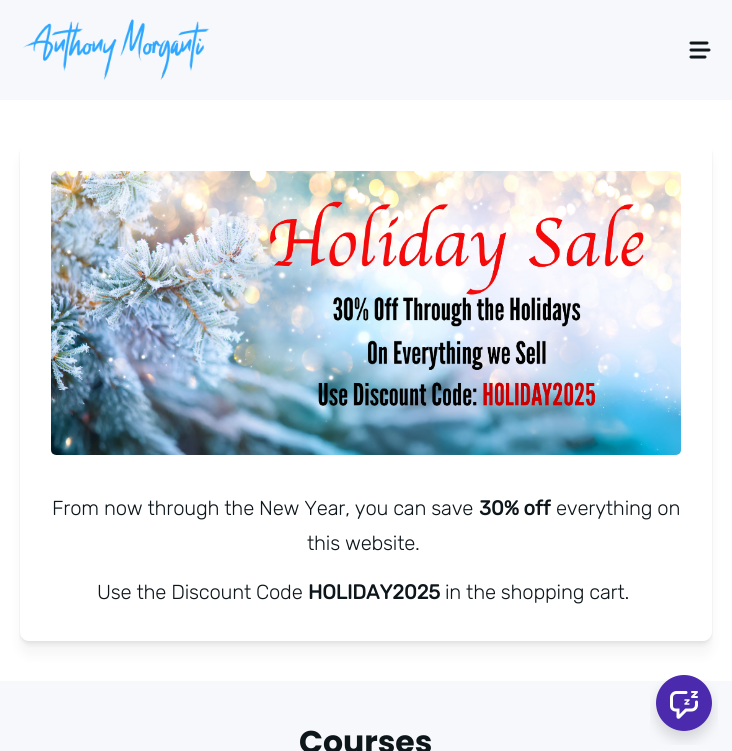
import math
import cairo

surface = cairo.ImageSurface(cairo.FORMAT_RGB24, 732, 751)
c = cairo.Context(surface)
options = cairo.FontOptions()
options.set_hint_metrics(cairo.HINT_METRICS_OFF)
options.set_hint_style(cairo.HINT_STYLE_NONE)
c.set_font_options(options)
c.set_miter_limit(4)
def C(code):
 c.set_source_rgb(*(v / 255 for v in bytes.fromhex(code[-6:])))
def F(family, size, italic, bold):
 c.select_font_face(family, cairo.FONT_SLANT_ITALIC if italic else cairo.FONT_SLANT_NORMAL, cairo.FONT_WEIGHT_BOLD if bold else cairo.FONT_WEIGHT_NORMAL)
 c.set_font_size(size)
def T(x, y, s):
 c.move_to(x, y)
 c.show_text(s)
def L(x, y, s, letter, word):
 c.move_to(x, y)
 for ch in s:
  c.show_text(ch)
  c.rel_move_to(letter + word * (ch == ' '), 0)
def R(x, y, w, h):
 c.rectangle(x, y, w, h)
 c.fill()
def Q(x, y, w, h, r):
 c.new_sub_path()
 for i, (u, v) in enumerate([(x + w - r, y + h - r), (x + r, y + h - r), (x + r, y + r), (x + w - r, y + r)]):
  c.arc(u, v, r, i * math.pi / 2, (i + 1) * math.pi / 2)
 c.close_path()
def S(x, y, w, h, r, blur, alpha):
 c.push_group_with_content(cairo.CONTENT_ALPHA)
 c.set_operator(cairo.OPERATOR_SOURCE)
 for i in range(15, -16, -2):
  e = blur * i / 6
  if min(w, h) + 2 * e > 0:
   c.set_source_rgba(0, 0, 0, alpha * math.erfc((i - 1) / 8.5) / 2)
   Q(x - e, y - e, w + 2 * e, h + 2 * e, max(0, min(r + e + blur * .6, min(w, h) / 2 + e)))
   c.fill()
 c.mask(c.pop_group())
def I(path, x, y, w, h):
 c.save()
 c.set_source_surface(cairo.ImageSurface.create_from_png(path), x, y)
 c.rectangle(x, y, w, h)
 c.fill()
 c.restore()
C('ffffff')
c.paint()
C('f7f8fc')
R(0,0,732,100)
I('1.png',23,19,187,61)
I('2.png',689,41,22,18)
C('000000')
S(20,155,692,500,9,7,.04)
S(20,146,692,500,9,2,.04)
S(20,143,692,500,9,1,.04)
C('ffffff')
Q(20,141,692,500,9)
c.fill()
I('3.png',51,171,630,284)
F('Rubik Light',20.25,0,0)
C('0d161b')
L(52,515,'From now through the New Year, you can save',-.2,0)
F('Rubik',20.25,0,1)
L(479,515,'30% off',-.2,0)
F('Rubik Light',20.25,0,0)
L(556,515,'everything on',-.2,0)
L(307,550,'this website.',-.2,0)
L(97,599,'Use the Discount Code',-.2,0)
F('Rubik',20.25,0,1)
L(308,599,'HOLIDAY2025',-.2,0)
F('Rubik Light',20.25,0,0)
L(445,599,'in the shopping cart.',-.2,0)
C('f7f8fc')
R(0,681,732,70)
F('Poppins',31.5,0,1)
C('0d161b')
T(299,753,'Courses')
I('4.png',650,679,68,66)
C('4b2aad')
c.arc(684,703,28,0,2 * math.pi)
c.fill()
I('5.png',670,691,28,28)
surface.write_to_png('o.png')
